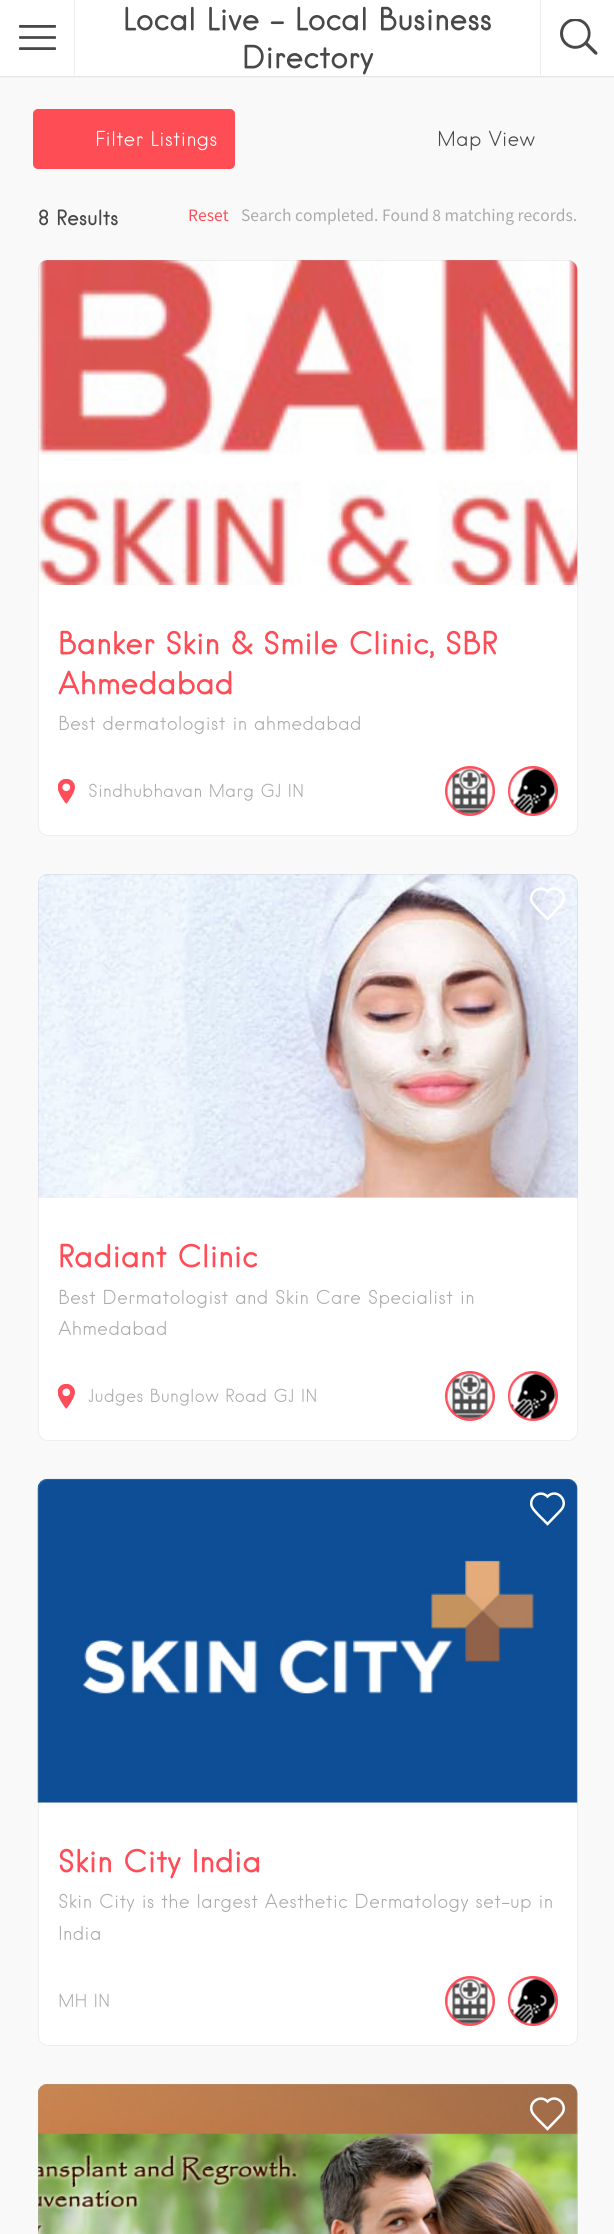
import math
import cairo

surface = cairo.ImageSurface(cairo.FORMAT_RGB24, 614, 2234)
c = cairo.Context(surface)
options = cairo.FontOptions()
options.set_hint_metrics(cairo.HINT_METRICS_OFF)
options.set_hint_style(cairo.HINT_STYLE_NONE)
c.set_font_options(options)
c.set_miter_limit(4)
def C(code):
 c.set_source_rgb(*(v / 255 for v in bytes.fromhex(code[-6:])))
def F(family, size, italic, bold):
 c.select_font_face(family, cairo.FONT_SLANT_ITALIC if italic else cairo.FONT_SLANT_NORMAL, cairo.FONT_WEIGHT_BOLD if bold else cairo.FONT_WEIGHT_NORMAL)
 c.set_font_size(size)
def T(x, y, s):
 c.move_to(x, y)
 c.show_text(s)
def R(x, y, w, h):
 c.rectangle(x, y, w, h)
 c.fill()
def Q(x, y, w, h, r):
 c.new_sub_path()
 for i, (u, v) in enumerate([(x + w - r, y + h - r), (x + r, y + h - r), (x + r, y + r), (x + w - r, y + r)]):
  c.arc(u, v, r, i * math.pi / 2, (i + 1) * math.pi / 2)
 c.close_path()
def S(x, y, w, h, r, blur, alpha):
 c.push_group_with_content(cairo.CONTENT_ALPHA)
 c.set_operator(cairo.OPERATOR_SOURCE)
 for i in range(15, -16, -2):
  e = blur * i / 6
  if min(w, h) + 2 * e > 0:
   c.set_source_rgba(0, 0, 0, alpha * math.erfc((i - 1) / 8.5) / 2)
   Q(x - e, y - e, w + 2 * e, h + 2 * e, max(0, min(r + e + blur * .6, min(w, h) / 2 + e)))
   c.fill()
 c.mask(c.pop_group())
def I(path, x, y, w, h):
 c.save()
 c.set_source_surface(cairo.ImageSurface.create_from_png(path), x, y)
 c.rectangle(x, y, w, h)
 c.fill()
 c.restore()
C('f9f9f9')
c.paint()
C('000000')
S(0,0,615,76,0,1,.25)
C('ffffff')
R(0,0,614,76)
C('ececec')
R(74,0,1,75)
I('1.png',19,25,37,25)
F('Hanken',30,0,0)
C('484848')
T(123,30,'Local Live – Local Business')
T(242,68,'Directory')
C('ececec')
R(540,0,1,75)
I('2.png',560,19,38,36)
C('ff4d55')
Q(33,109,202,60,5)
c.fill()
F('Hanken Light',20,0,0)
C('ffffff')
T(95,146,'Filter Listings')
C('484848')
T(437,146,'Map View')
F('Hanken',20,0,0)
T(38,225,'8 Results')
F('Source Sans Pro',17.5,0,0)
C('ff4d58')
T(188,221,'Reset')
C('ababab')
T(241,221,'Search completed. Found 8 matching records.')
C('ffffff')
Q(38,260,540,576,10)
c.fill()
c.set_source_rgba(0,0,0,0.07)
c.new_path()
c.move_to(48,260)
c.line_to(568,260)
c.curve_to(573.5,260,578,264.5,578,270)
c.line_to(578,585)
c.line_to(38,585)
c.line_to(38,270)
c.curve_to(38,264.5,42.5,260,48,260)
c.close_path()
c.fill()
I('3.png',38,260,540,325)
c.new_path()
c.move_to(560.5,291.5)
c.curve_to(570,282.5,556.5,269,547.5,278)
c.curve_to(540,270.5,528,279,532,288.5)
c.curve_to(533.5,291,536,293.5,538,295.5)
c.line_to(547.5,305)
c.close_path()
C('ffffff')
c.set_line_width(2.5)
c.stroke()
I('4.png',58,779,17,25)
c.arc(470,791,23.5,0,2 * math.pi)
C('ff4d5a')
c.set_line_width(3)
c.stroke()
I('5.png',447,768,46,47)
c.arc(533,791,23.5,0,2 * math.pi)
c.stroke()
I('6.png',509,768,47,47)
Q(38.5,260.5,539,575,9.5)
c.set_source_rgba(0.671,0.671,0.671,0.2)
c.set_line_width(1)
c.stroke()
F('Hanken',30,0,0)
C('ff4d58')
T(58,654,'Banker Skin & Smile Clinic, SBR')
T(58,694,'Ahmedabad')
F('Hanken Light',18.7,0,0)
C('ababab')
T(58,730,'Best dermatologist in ahmedabad')
F('Hanken Light',17.5,0,0)
T(88,797,'Sindhubhavan Marg GJ IN')
C('ffffff')
Q(38,874,540,567,10)
c.fill()
c.set_source_rgba(0,0,0,0.07)
c.new_path()
c.move_to(48,874)
c.line_to(568,874)
c.curve_to(573.5,874,578,878.5,578,884)
c.line_to(578,1198)
c.line_to(38,1198)
c.line_to(38,884)
c.curve_to(38,878.5,42.5,874,48,874)
c.close_path()
c.fill()
I('7.png',38,874,540,324)
c.new_path()
c.move_to(560.5,905.5)
c.curve_to(570,896,556.5,882.5,547.5,891.5)
c.curve_to(540,884,528,892.5,532,902)
c.curve_to(533.5,905,536,907,538,909.5)
c.line_to(547.5,919)
c.close_path()
C('ffffff')
c.set_line_width(2.5)
c.stroke()
I('4.png',58,1384,17,25)
c.arc(470,1396,23.5,0,2 * math.pi)
C('ff4d5a')
c.set_line_width(3)
c.stroke()
I('5.png',447,1373,46,47)
c.arc(533,1396,23.5,0,2 * math.pi)
c.stroke()
I('6.png',509,1373,47,47)
Q(38.5,874.5,539,566,9.5)
c.set_source_rgba(0.671,0.671,0.671,0.2)
c.set_line_width(1)
c.stroke()
F('Hanken',30,0,0)
C('ff4d58')
T(58,1267,'Radiant Clinic')
F('Hanken Light',18.7,0,0)
C('ababab')
T(58,1304,'Best Dermatologist and Skin Care Specialist in')
T(58,1335,'Ahmedabad')
F('Hanken Light',17.5,0,0)
T(88,1402,'Judges Bunglow Road GJ IN')
C('ffffff')
Q(38,1479,540,567,10)
c.fill()
c.set_source_rgba(0,0,0,0.07)
c.new_path()
c.move_to(48,1479)
c.line_to(568,1479)
c.curve_to(573.5,1479,578,1483.5,578,1489)
c.line_to(578,1803)
c.line_to(38,1803)
c.line_to(38,1489)
c.curve_to(38,1483.5,42.5,1479,48,1479)
c.close_path()
c.fill()
I('8.png',37,1478,541,325)
c.new_path()
c.move_to(560.5,1510.5)
c.curve_to(570,1501,556.5,1487.5,547.5,1496.5)
c.curve_to(540,1489,528,1497.5,532,1507)
c.curve_to(533.5,1510,536,1512,538,1514.5)
c.line_to(547.5,1524)
c.close_path()
C('ffffff')
c.set_line_width(2.5)
c.stroke()
c.arc(470,2001,23.5,0,2 * math.pi)
C('ff4d5a')
c.set_line_width(3)
c.stroke()
I('5.png',447,1978,46,47)
c.arc(533,2001,23.5,0,2 * math.pi)
c.stroke()
I('6.png',509,1978,47,47)
Q(38.5,1479.5,539,566,9.5)
c.set_source_rgba(0.671,0.671,0.671,0.2)
c.set_line_width(1)
c.stroke()
F('Hanken',30,0,0)
C('ff4d58')
T(58,1872,'Skin City India')
F('Hanken Light',18.7,0,0)
C('ababab')
T(58,1908,'Skin City is the largest Aesthetic Dermatology set-up in')
T(58,1940,'India')
F('Hanken Light',17.5,0,0)
T(58,2007,'MH IN')
C('ffffff')
Q(38,2084,540,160,10)
c.fill()
c.set_source_rgba(0,0,0,0.07)
c.new_path()
c.move_to(48,2084)
c.line_to(568,2084)
c.curve_to(573.5,2084,578,2088.5,578,2094)
c.line_to(578,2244)
c.line_to(38,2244)
c.line_to(38,2094)
c.curve_to(38,2088.5,42.5,2084,48,2084)
c.close_path()
c.fill()
I('9.png',38,2084,540,150)
c.new_path()
c.move_to(560.5,2115.5)
c.curve_to(570,2106,556.5,2092.5,547.5,2101.5)
c.curve_to(540,2094,528,2102.5,532,2112)
c.curve_to(533.5,2115,536,2117,538,2119.5)
c.line_to(547.5,2129)
c.close_path()
C('ffffff')
c.set_line_width(2.5)
c.stroke()
Q(38.5,2084.5,539,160,9.5)
c.set_source_rgba(0.671,0.671,0.671,0.2)
c.set_line_width(1)
c.stroke()
surface.write_to_png('o.png')
